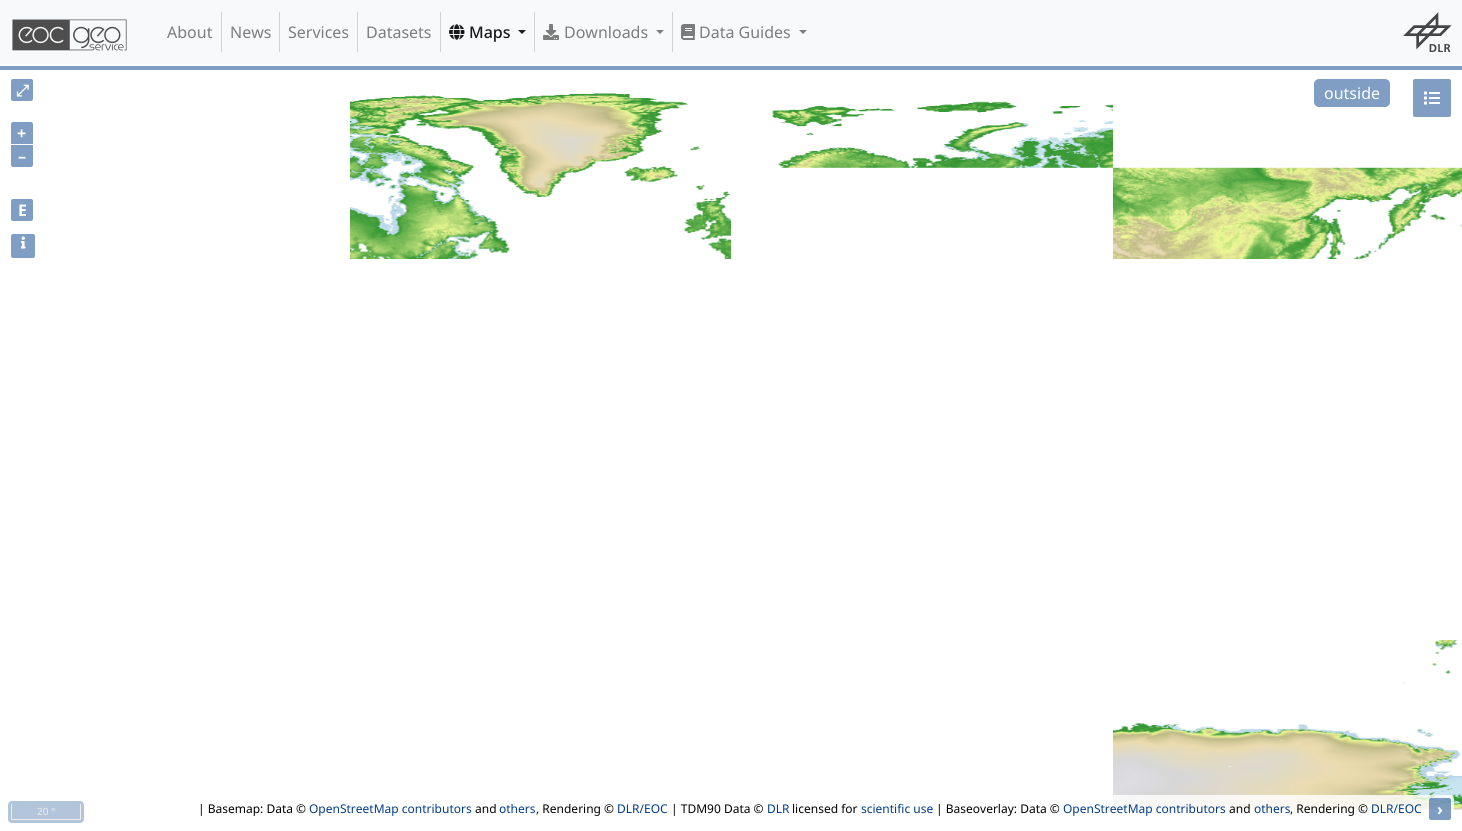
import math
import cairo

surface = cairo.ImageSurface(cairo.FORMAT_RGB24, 1462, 831)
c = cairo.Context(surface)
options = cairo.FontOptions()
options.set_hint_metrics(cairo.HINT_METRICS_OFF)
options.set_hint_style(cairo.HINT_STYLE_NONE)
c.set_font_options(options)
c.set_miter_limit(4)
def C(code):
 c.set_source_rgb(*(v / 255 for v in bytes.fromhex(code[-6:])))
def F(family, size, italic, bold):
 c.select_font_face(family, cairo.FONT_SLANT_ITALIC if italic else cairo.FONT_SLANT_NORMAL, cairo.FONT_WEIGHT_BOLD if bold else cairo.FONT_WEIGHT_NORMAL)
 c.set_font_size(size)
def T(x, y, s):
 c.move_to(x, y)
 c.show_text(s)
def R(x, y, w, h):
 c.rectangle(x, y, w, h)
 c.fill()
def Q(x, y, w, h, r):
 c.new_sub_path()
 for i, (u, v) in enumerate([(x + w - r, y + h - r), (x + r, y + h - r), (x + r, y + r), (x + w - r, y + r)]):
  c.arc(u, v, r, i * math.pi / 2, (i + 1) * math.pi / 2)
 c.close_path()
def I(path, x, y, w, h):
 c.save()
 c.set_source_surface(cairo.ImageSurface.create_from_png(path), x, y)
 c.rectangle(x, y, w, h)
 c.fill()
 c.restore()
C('ffffff')
c.paint()
C('f8f9fa')
R(0,0,1462,64)
I('1.png',12,19,115,32)
C('d3d3d3')
R(221,12,1,40)
F('Noto Sans',16,0,0)
C('7c7d7d')
T(167,38,'About')
C('d3d3d3')
R(279,12,1,40)
C('7c7d7d')
T(230,38,'News')
C('d3d3d3')
R(357,12,1,40)
C('7c7d7d')
T(288,38,'Services')
C('d3d3d3')
R(440,12,1,40)
C('7c7d7d')
T(366,38,'Datasets')
C('d3d3d3')
R(534,12,1,40)
I('2.png',449,24,16,16)
F('Noto Sans Medium',16,0,0)
C('191919')
T(469,38,'Maps')
c.new_path()
c.move_to(518,30)
c.line_to(526,30)
c.line_to(522,34)
c.close_path()
c.fill()
C('d3d3d3')
R(672,12,1,40)
I('3.png',543,24,16,16)
F('Noto Sans',16,0,0)
C('7c7d7d')
T(564,38,'Downloads')
c.new_path()
c.move_to(656,30)
c.line_to(664,30)
c.line_to(660,34)
c.close_path()
c.fill()
I('4.png',681,24,14,16)
T(699,38,'Data Guides')
c.new_path()
c.move_to(799,30)
c.line_to(807,30)
c.line_to(803,34)
c.close_path()
c.fill()
I('5.png',1403,12,49,40)
C('809ec4')
R(0,66,1462,4)
Q(11,79,22,22,2)
c.fill()
F('FreeSerif',16,0,1)
C('ffffff')
T(16,96,'⤢')
I('8.png',350,93,1112,717)
C('809ec4')
Q(1314,79,76,28,5)
c.fill()
F('Noto Sans',16,0,0)
C('ffffff')
T(1324,99,'outside')
C('809ec4')
Q(1413,79,38,38,2)
c.fill()
I('6.png',1424,91,16,14)
c.new_path()
c.move_to(13,122)
c.line_to(31,122)
c.curve_to(32,122,33,123,33,124)
c.line_to(33,144)
c.line_to(11,144)
c.line_to(11,124)
c.curve_to(11,123,12,122,13,122)
c.close_path()
c.fill()
F('Noto Sans',16,0,1)
C('ffffff')
T(17,139,'+')
C('809ec4')
c.new_path()
c.move_to(11,145)
c.line_to(33,145)
c.line_to(33,165)
c.curve_to(33,166,32,167,31,167)
c.line_to(13,167)
c.curve_to(12,167,11,166,11,165)
c.close_path()
c.fill()
C('ffffff')
T(18,162,'–')
C('809ec4')
Q(11,199,22,22,2)
c.fill()
C('ffffff')
T(18,216,'E')
C('809ec4')
Q(11,234,24,24,2)
c.fill()
I('7.png',21,236,5,13)
C('b3c5db')
Q(8,801,76,22,4)
c.fill()
C('eeeeee')
R(80,804,1,16)
R(11,819,70,1)
R(11,804,1,16)
F('Noto Sans',10,0,0)
T(37,815,'20 °')
c.set_source_rgba(1,1,1,0.8)
Q(190,795,1264,28,4)
c.fill()
F('Noto Sans',12,0,0)
C('000000')
T(198,813,'| Basemap: Data ©')
C('003c88')
T(309,813,'OpenStreetMap contributors')
C('000000')
T(475,813,'and')
C('003c88')
T(499,813,'others')
C('000000')
T(536,813,', Rendering ©')
C('003c88')
T(617,813,'DLR/EOC')
C('000000')
T(671,813,'| TDM90 Data ©')
C('003c88')
T(767,813,'DLR')
C('000000')
T(792,813,'licensed for')
C('003c88')
T(861,813,'scientific use')
C('000000')
T(936,813,'| Baseoverlay: Data ©')
C('003c88')
T(1063,813,'OpenStreetMap contributors')
C('000000')
T(1229,813,'and')
C('003c88')
T(1254,813,'others')
C('000000')
T(1290,813,', Rendering ©')
C('003c88')
T(1371,813,'DLR/EOC')
c.set_source_rgba(0,0.235,0.533,0.5)
Q(1429,798,22,22,2)
c.fill()
F('Noto Sans',16,0,1)
C('ffffff')
T(1437,815,'›')
surface.write_to_png('o.png')
